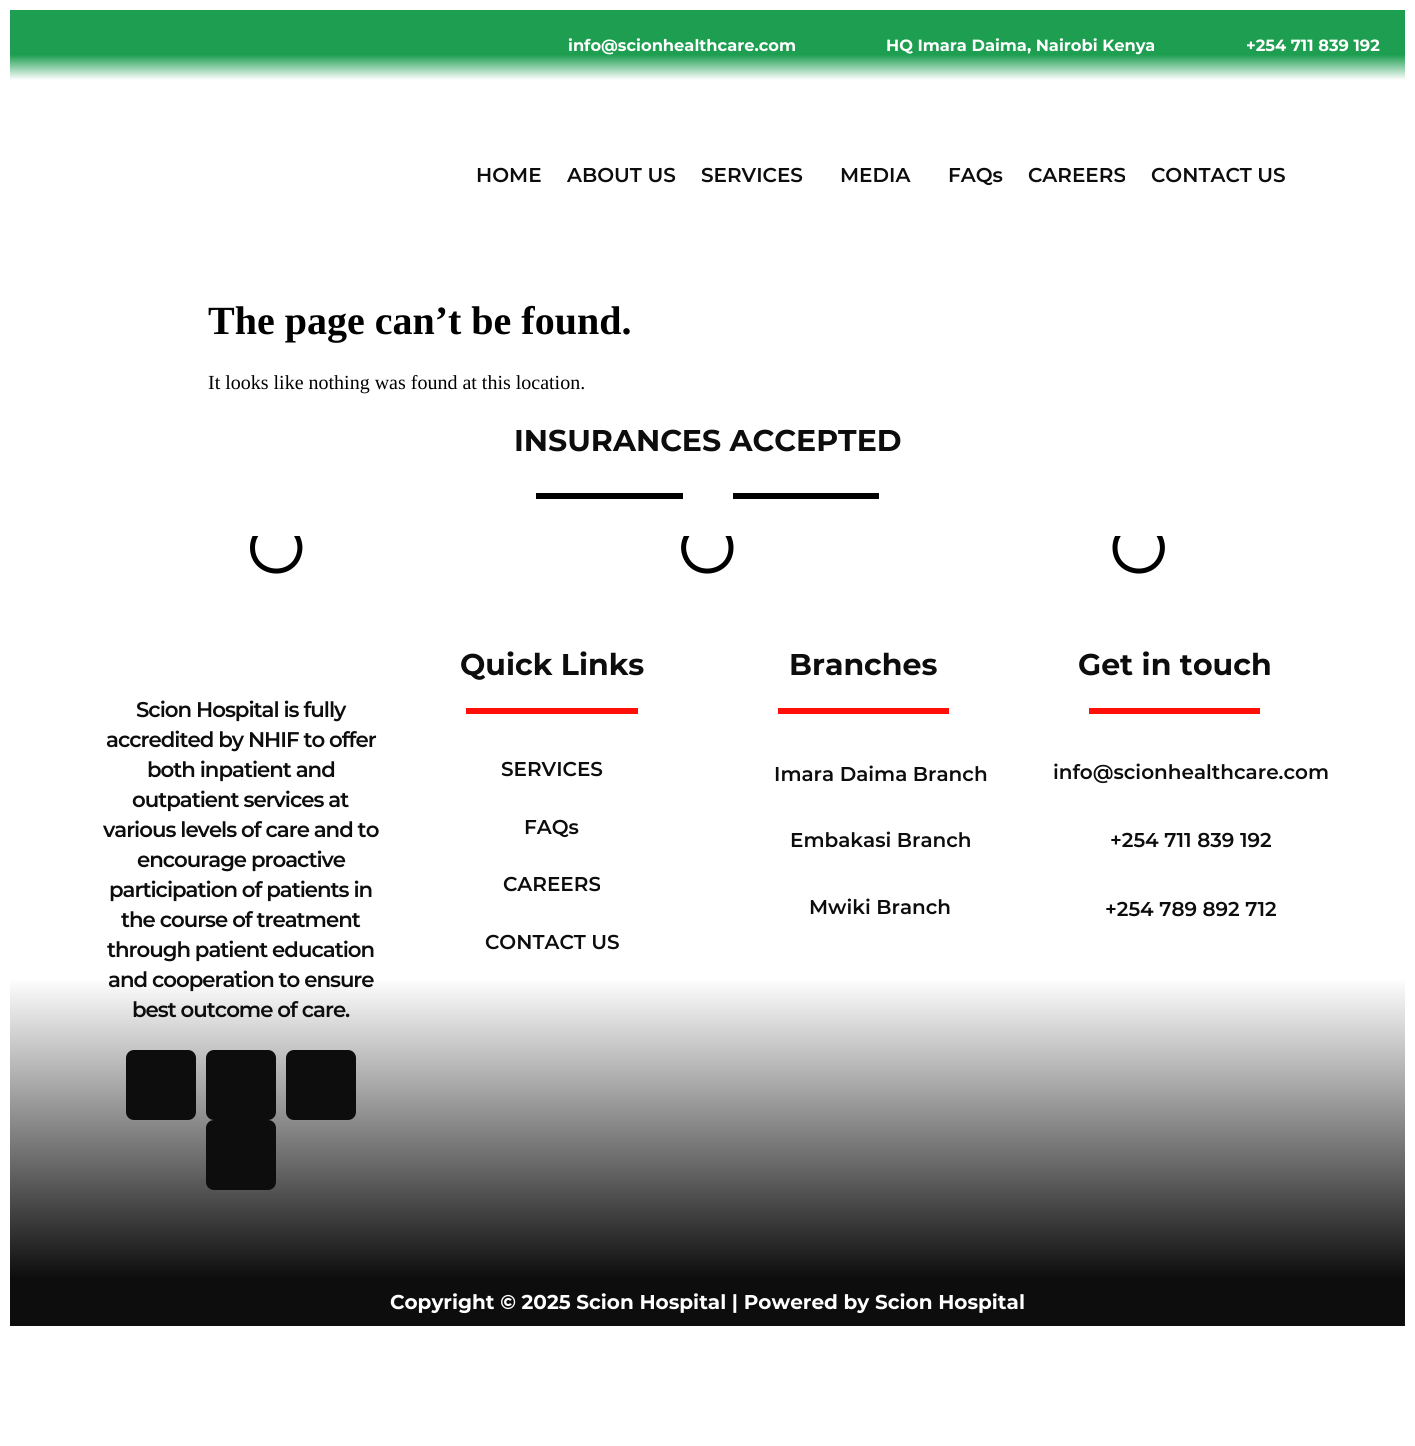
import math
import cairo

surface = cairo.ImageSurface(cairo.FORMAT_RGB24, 1415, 1446)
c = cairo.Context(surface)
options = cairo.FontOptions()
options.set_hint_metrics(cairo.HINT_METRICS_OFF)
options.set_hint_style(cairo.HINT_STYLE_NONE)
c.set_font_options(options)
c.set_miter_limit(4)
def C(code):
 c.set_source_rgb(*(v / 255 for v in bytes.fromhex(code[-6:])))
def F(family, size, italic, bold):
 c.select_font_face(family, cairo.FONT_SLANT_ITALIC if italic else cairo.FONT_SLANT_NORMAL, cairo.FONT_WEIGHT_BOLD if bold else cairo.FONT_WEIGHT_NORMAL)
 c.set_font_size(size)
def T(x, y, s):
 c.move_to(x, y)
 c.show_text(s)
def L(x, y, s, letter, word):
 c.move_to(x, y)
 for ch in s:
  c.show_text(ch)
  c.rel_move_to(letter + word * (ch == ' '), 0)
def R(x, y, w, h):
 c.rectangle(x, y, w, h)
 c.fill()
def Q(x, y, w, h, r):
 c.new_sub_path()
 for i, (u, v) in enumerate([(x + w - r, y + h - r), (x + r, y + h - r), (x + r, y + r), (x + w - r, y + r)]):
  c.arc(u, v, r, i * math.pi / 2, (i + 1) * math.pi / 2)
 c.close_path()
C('ffffff')
c.paint()
gradient = cairo.LinearGradient(708,80,708,10)
gradient.add_color_stop_rgba(0,1,1,1,1)
gradient.add_color_stop_rgba(.36,0.114,0.62,0.314,1)
c.set_source(gradient)
R(10,10,1395,70)
F('Montserrat',16.25,0,1)
C('ffffff')
T(568,51,'info@scionhealthcare.com')
T(886,51,'HQ Imara Daima, Nairobi Kenya')
T(1246,51,'+254 711 839 192')
F('Montserrat SemiBold',20,0,0)
C('0d0d0d')
T(476,182,'HOME')
T(567,182,'ABOUT US')
T(701,182,'SERVICES')
T(840,182,'MEDIA')
T(948,182,'FAQs')
T(1028,182,'CAREERS')
T(1151,182,'CONTACT US')
F('Liberation Serif',40,0,1)
C('000000')
T(208,334,'The page can’t be found.')
F('Liberation Serif',20,0,0)
T(208,389,'It looks like nothing was found at this location.')
F('Montserrat',30,0,1)
C('0d0d0d')
T(514,451,'INSURANCES ACCEPTED')
C('000000')
R(536,493,147,6)
R(733,493,146,6)
c.save()
c.rectangle(60,536,1295,60)
c.clip()
c.new_path()
c.move_to(293,530.5)
c.curve_to(298.5,536.5,301,544.5,299.5,552)
c.curve_to(294,580,252.5,576,252.5,547.5)
c.curve_to(252.5,541,255,535,259.5,530.5)
c.set_line_width(5)
c.stroke()
c.new_path()
c.move_to(724.5,530.5)
c.curve_to(728.5,535,731,541,731,547.5)
c.curve_to(731,576,690,580,684,552)
c.curve_to(682.5,544.5,685,536.5,690.5,530.5)
c.stroke()
c.new_path()
c.move_to(1155.5,530.5)
c.curve_to(1161,536.5,1163.5,544.5,1162,552)
c.curve_to(1156.5,580,1115,576,1115,547.5)
c.curve_to(1115,541,1117.5,535,1122,530.5)
c.stroke()
c.restore()
gradient = cairo.LinearGradient(708,562,708,1278)
gradient.add_color_stop_rgba(.58,1,1,1,1)
gradient.add_color_stop_rgba(1,0.051,0.051,0.051,1)
c.set_source(gradient)
R(10,980,1395,298)
F('Montserrat SemiBold',21.25,0,0)
C('0d0d0d')
L(136,717,'Scion Hospital is fully',-1,0)
L(106,747,'accredited by NHIF to offer',-1,0)
L(147,777,'both inpatient and',-1,0)
L(132,807,'outpatient services at',-1,0)
L(103,837,'various levels of care and to',-1,0)
L(137,867,'encourage proactive',-1,0)
L(109,897,'participation of patients in',-1,0)
L(121,927,'the course of treatment',-1,0)
L(107,957,'through patient education',-1,0)
L(108,987,'and cooperation to ensure',-1,0)
L(132,1017,'best outcome of care.',-1,0)
Q(126,1050,70,70,8)
c.fill()
Q(206,1050,70,70,8)
c.fill()
Q(286,1050,70,70,8)
c.fill()
Q(206,1120,70,70,8)
c.fill()
F('Montserrat',30,0,1)
T(460,675,'Quick Links')
C('ff0f08')
R(466,708,172,6)
F('Montserrat SemiBold',20,0,0)
C('0d0d0d')
T(501,776,'SERVICES')
T(524,834,'FAQs')
T(503,891,'CAREERS')
T(485,949,'CONTACT US')
F('Montserrat',30,0,1)
T(789,675,'Branches')
C('ff0f08')
R(778,708,171,6)
F('Montserrat SemiBold',20,0,0)
C('0d0d0d')
T(774,781,'Imara Daima Branch')
T(790,847,'Embakasi Branch')
T(809,914,'Mwiki Branch')
F('Montserrat',30,0,1)
T(1078,675,'Get in touch')
C('ff0f08')
R(1089,708,171,6)
F('Montserrat SemiBold',20,0,0)
C('0d0d0d')
T(1053,779,'info@scionhealthcare.com')
T(1110,847,'+254 711 839 192')
T(1105,916,'+254 789 892 712')
R(10,1278,1395,48)
F('Montserrat',20,0,1)
C('ffffff')
T(390,1309,'Copyright © 2025 Scion Hospital | Powered by Scion Hospital')
surface.write_to_png('o.png')
